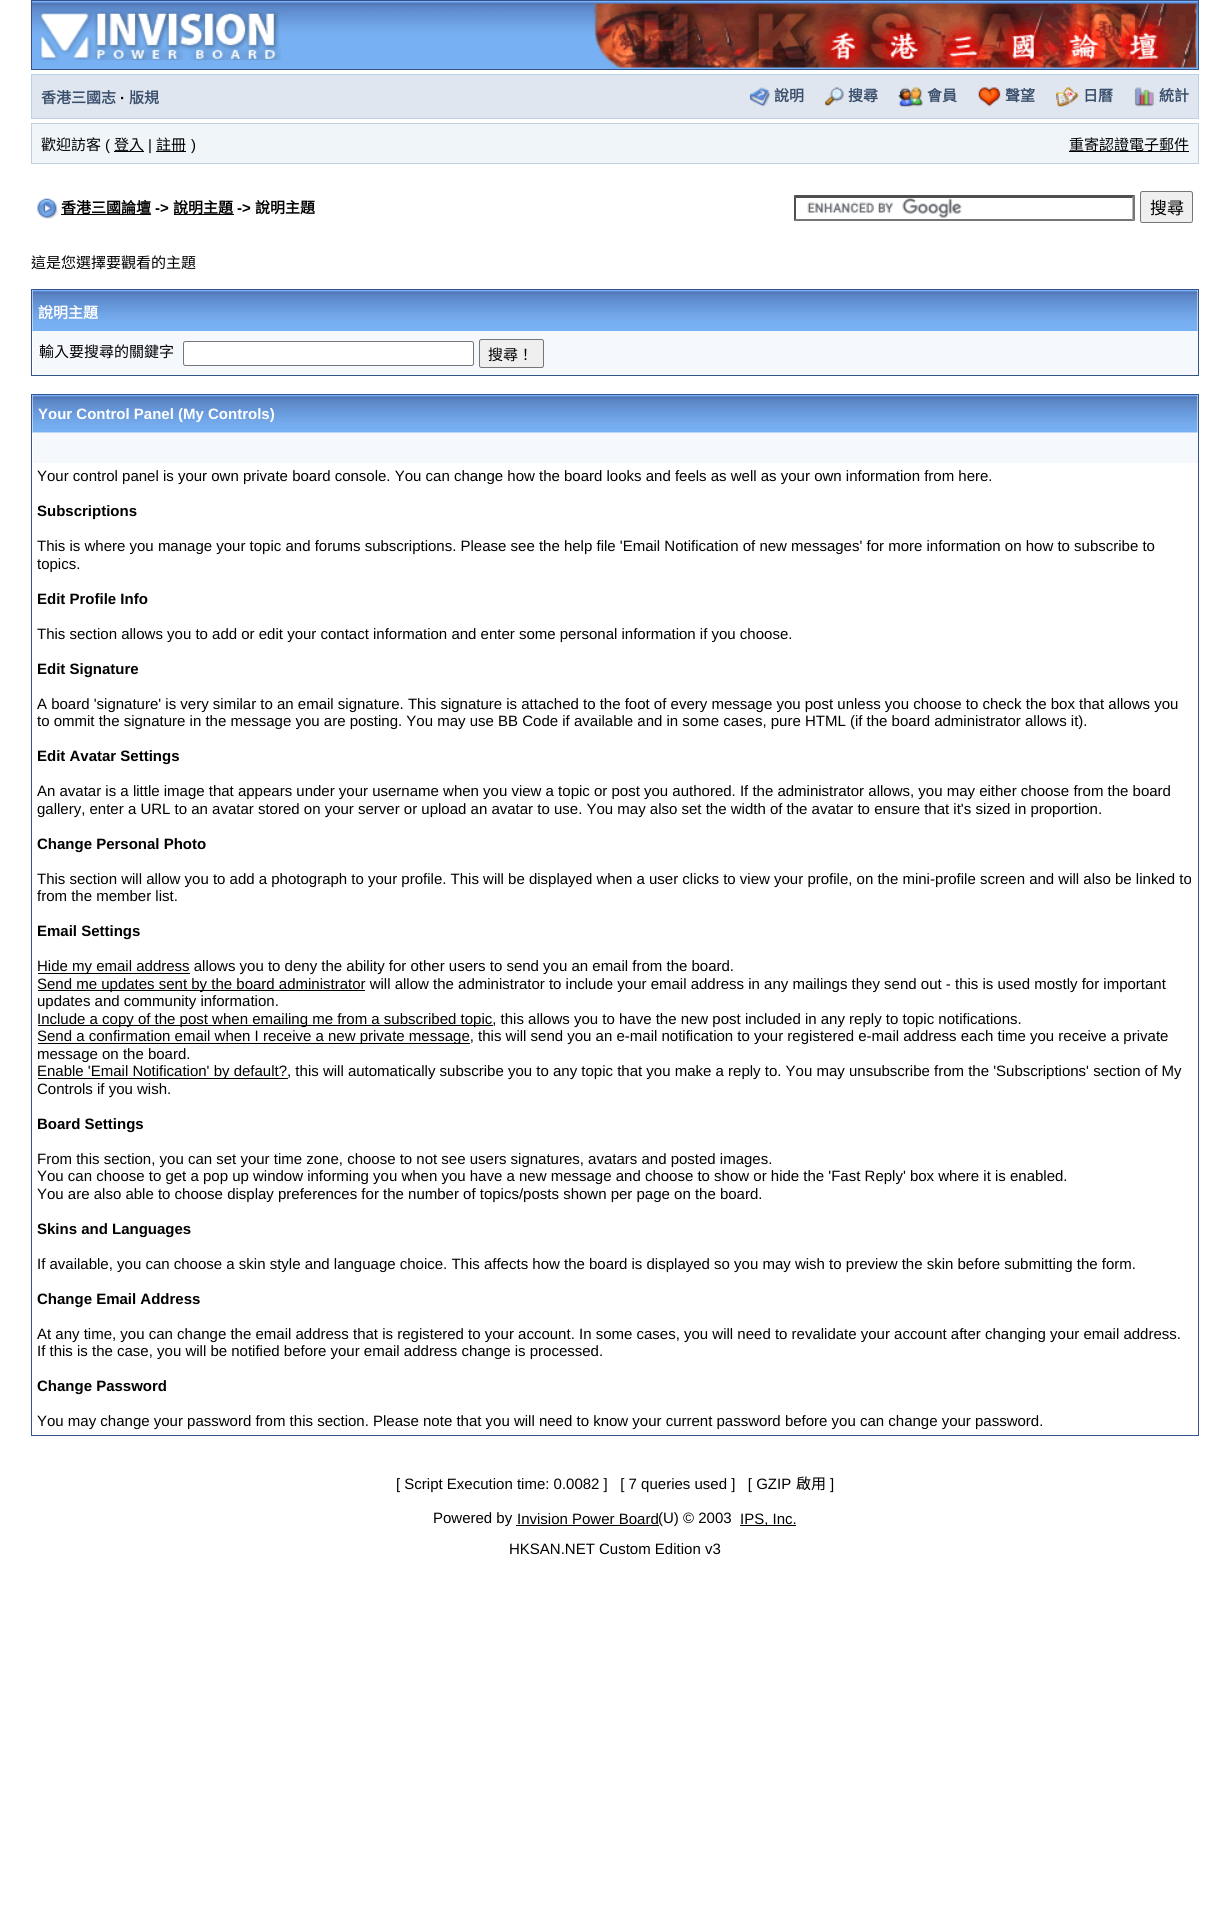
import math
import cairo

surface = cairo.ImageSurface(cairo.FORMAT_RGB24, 1230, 1914)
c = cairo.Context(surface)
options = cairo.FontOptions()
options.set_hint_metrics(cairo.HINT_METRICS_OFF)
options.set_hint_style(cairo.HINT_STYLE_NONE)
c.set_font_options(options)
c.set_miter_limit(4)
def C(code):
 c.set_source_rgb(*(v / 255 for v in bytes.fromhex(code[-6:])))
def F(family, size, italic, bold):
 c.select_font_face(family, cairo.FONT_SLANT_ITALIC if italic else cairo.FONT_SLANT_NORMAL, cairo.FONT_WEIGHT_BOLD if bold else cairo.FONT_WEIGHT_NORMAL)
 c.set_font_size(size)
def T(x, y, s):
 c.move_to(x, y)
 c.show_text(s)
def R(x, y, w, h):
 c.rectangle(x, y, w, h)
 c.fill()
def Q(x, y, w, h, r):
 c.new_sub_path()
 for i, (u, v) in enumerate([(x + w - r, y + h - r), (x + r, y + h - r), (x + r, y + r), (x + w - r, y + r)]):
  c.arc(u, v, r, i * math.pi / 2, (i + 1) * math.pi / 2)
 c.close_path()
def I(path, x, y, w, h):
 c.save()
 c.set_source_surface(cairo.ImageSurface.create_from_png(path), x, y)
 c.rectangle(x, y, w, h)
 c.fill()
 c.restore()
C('ffffff')
c.paint()
I('1.png',32,1,1166,68)
c.rectangle(31.5,.5,1167,69)
C('345487')
c.set_line_width(1)
c.stroke()
I('2.png',40,11,241,50)
I('3.png',593,3,604,65)
C('dfe6ef')
c.rectangle(31.5,74.5,1167,44)
c.fill_preserve()
C('bcd0ed')
c.stroke()
F('Noto Sans CJK TC',15,0,1)
C('3a4f6c')
T(41,103,'香港三國志')
F('Liberation Sans',15,0,1)
C('000000')
T(120,103,'·')
F('Noto Sans CJK TC',15,0,1)
C('3a4f6c')
T(129,103,'版規')
I('4.png',750,87,20,20)
T(774,101,'說明')
I('5.png',825,87,19,20)
T(848,101,'搜尋')
I('6.png',898,87,25,20)
T(927,101,'會員')
I('7.png',978,87,23,20)
T(1005,101,'聲望')
I('8.png',1056,87,23,20)
T(1083,101,'日曆')
I('9.png',1134,87,20,20)
T(1159,101,'統計')
C('f0f5fa')
c.rectangle(31.5,123.5,1167,40)
c.fill_preserve()
C('c2cfdf')
c.stroke()
F('Noto Sans CJK TC',15,0,0)
C('000000')
T(41,150,'歡迎訪客')
F('Liberation Sans',15,0,0)
T(105,150,'(')
R(114,151,30,1)
F('Noto Sans CJK TC',15,0,0)
T(114,150,'登入')
F('Liberation Sans',15,0,0)
T(148,150,'|')
R(156,151,30,1)
F('Noto Sans CJK TC',15,0,0)
T(156,150,'註冊')
F('Liberation Sans',15,0,0)
T(191,150,')')
R(1069,151,120,1)
F('Noto Sans CJK TC',15,0,0)
T(1069,150,'重寄認證電子郵件')
I('10.png',37,198,21,21)
R(61,214,90,1)
F('Noto Sans CJK TC',15,0,1)
T(61,213,'香港三國論壇')
F('Liberation Sans',15,0,1)
T(155,213,'->')
R(174,214,60,1)
F('Noto Sans CJK TC',15,0,1)
T(173,213,'說明主題')
F('Liberation Sans',15,0,1)
T(237,213,'->')
F('Noto Sans CJK TC',15,0,1)
T(255,213,'說明主題')
I('11.png',807,198,155,20)
C('4f4f4f')
c.new_path()
c.move_to(794,195)
c.line_to(1135,195)
c.line_to(1132,198)
c.line_to(796,198)
c.close_path()
c.fill()
C('767676')
c.new_path()
c.move_to(1135,195)
c.line_to(1135,221)
c.line_to(1132.5,219)
c.line_to(1132.5,197.5)
c.close_path()
c.fill()
c.new_path()
c.move_to(1135,221)
c.line_to(794,221)
c.line_to(796,219)
c.line_to(1132,219)
c.close_path()
c.fill()
C('4f4f4f')
c.new_path()
c.move_to(794,221)
c.line_to(794,195)
c.line_to(796,197.5)
c.line_to(796,219)
c.close_path()
c.fill()
C('efefef')
Q(1140.5,191.5,52,31,2)
c.fill_preserve()
C('767676')
c.stroke()
F('Noto Sans CJK TC',17,0,0)
C('000000')
T(1150,214,'搜尋')
F('Noto Sans CJK TC',15,0,0)
T(31,268,'這是您選擇要觀看的主題')
c.rectangle(31.5,289.5,1167,86)
C('345487')
c.stroke()
I('12.png',32,290,1166,42)
F('Noto Sans CJK TC',15,0,1)
C('ffffff')
T(38,318,'說明主題')
C('f5f9fd')
R(33,331,1165,44)
F('Noto Sans CJK TC',15,0,0)
C('000000')
T(39,357,'輸入要搜尋的關鍵字')
C('ffffff')
Q(183.5,341.5,290,24,2)
c.fill_preserve()
C('767676')
c.stroke()
C('efefef')
Q(479.5,339.5,64,28,2)
c.fill_preserve()
C('767676')
c.stroke()
C('000000')
T(488,360,'搜尋！')
c.rectangle(31.5,394.5,1167,1041)
C('345487')
c.stroke()
I('13.png',32,395,1166,38)
F('Liberation Sans',15,0,1)
C('ffffff')
T(38,419,'Your Control Panel (My Controls)')
C('f5f9fd')
R(33,433,1165,30)
F('Liberation Sans',15,0,0)
C('000000')
T(37,481,'Your control panel is your own private board console. You can change how the board looks and feels as well as your own information from here.')
F('Liberation Sans',15,0,1)
T(37,516,'Subscriptions')
F('Liberation Sans',15,0,0)
T(37,551,'This is where you manage your topic and forums subscriptions. Please see the help file \'Email Notification of new messages\' for more information on how to subscribe to')
T(37,569,'topics.')
F('Liberation Sans',15,0,1)
T(37,604,'Edit Profile Info')
F('Liberation Sans',15,0,0)
T(37,639,'This section allows you to add or edit your contact information and enter some personal information if you choose.')
F('Liberation Sans',15,0,1)
T(37,674,'Edit Signature')
F('Liberation Sans',15,0,0)
T(37,709,'A board \'signature\' is very similar to an email signature. This signature is attached to the foot of every message you post unless you choose to check the box that allows you')
T(37,726,'to ommit the signature in the message you are posting. You may use BB Code if available and in some cases, pure HTML (if the board administrator allows it).')
F('Liberation Sans',15,0,1)
T(37,761,'Edit Avatar Settings')
F('Liberation Sans',15,0,0)
T(37,796,'An avatar is a little image that appears under your username when you view a topic or post you authored. If the administrator allows, you may either choose from the board')
T(37,814,'gallery, enter a URL to an avatar stored on your server or upload an avatar to use. You may also set the width of the avatar to ensure that it\'s sized in proportion.')
F('Liberation Sans',15,0,1)
T(37,849,'Change Personal Photo')
F('Liberation Sans',15,0,0)
T(37,884,'This section will allow you to add a photograph to your profile. This will be displayed when a user clicks to view your profile, on the mini-profile screen and will also be linked to')
T(37,901,'from the member list.')
F('Liberation Sans',15,0,1)
T(37,936,'Email Settings')
R(38,973,152,1)
F('Liberation Sans',15,0,0)
T(37,971,'Hide my email address allows you to deny the ability for other users to send you an email from the board.')
R(38,990,327,1)
T(37,989,'Send me updates sent by the board administrator will allow the administrator to include your email address in any mailings they send out - this is used mostly for important')
T(37,1006,'updates and community information.')
R(38,1025,455,1)
T(37,1024,'Include a copy of the post when emailing me from a subscribed topic, this allows you to have the new post included in any reply to topic notifications.')
R(38,1043,432,1)
T(37,1041,'Send a confirmation email when I receive a new private message, this will send you an e-mail notification to your registered e-mail address each time you receive a private')
T(37,1059,'message on the board.')
R(38,1078,250,1)
T(37,1076,'Enable \'Email Notification\' by default?, this will automatically subscribe you to any topic that you make a reply to. You may unsubscribe from the \'Subscriptions\' section of My')
T(37,1094,'Controls if you wish.')
F('Liberation Sans',15,0,1)
T(37,1129,'Board Settings')
F('Liberation Sans',15,0,0)
T(37,1164,'From this section, you can set your time zone, choose to not see users signatures, avatars and posted images.')
T(37,1181,'You can choose to get a pop up window informing you when you have a new message and choose to show or hide the \'Fast Reply\' box where it is enabled.')
T(37,1199,'You are also able to choose display preferences for the number of topics/posts shown per page on the board.')
F('Liberation Sans',15,0,1)
T(37,1234,'Skins and Languages')
F('Liberation Sans',15,0,0)
T(37,1269,'If available, you can choose a skin style and language choice. This affects how the board is displayed so you may wish to preview the skin before submitting the form.')
F('Liberation Sans',15,0,1)
T(37,1304,'Change Email Address')
F('Liberation Sans',15,0,0)
T(37,1339,'At any time, you can change the email address that is registered to your account. In some cases, you will need to revalidate your account after changing your email address.')
T(37,1356,'If this is the case, you will be notified before your email address change is processed.')
F('Liberation Sans',15,0,1)
T(37,1391,'Change Password')
F('Liberation Sans',15,0,0)
T(37,1426,'You may change your password from this section. Please note that you will need to know your current password before you can change your password.')
T(396,1489,'[ Script Execution time: 0.0082 ]   [ 7 queries used ]   [ GZIP')
F('Noto Sans CJK TC',15,0,0)
T(796,1489,'啟用')
F('Liberation Sans',15,0,0)
T(830,1489,']')
T(433,1523,'Powered by')
T(517,1524,'Invision Power Board')
R(516,1525,143,1)
T(658,1523,'(U) © 2003')
R(740,1525,56,1)
T(740,1524,'IPS, Inc.')
T(509,1554,'HKSAN.NET Custom Edition v3')
surface.write_to_png('o.png')
